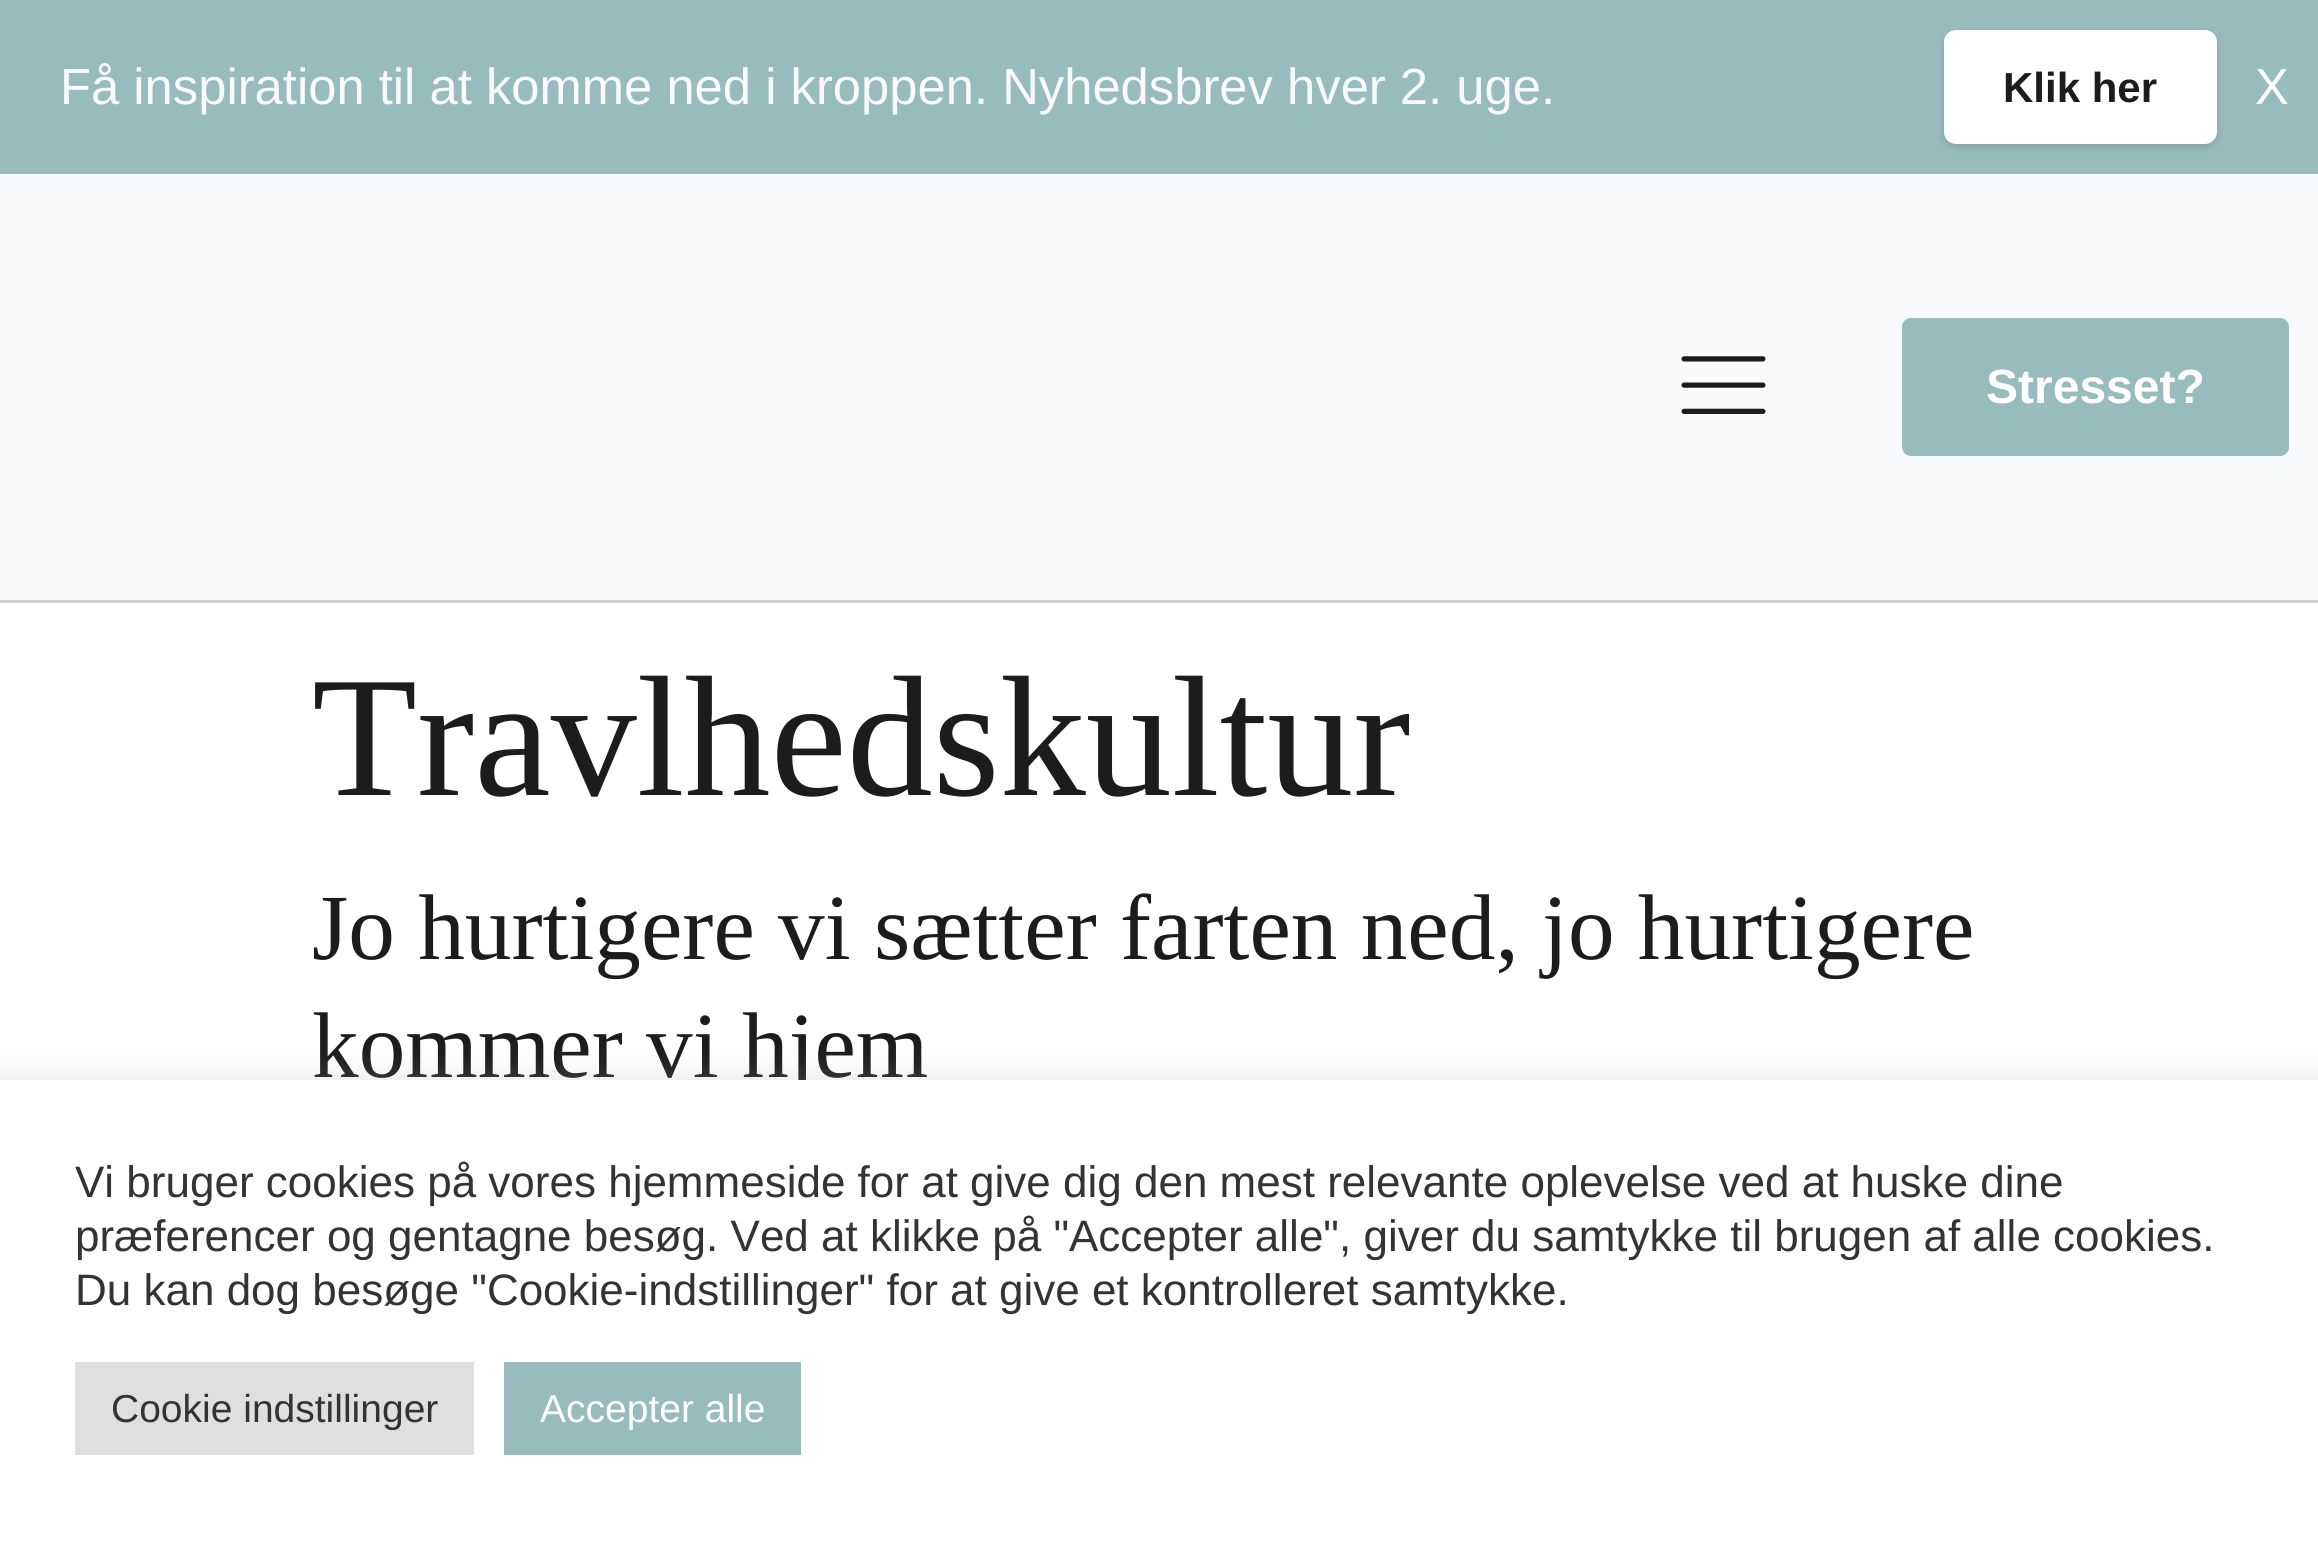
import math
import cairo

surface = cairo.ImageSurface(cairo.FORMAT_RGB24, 2318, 1543)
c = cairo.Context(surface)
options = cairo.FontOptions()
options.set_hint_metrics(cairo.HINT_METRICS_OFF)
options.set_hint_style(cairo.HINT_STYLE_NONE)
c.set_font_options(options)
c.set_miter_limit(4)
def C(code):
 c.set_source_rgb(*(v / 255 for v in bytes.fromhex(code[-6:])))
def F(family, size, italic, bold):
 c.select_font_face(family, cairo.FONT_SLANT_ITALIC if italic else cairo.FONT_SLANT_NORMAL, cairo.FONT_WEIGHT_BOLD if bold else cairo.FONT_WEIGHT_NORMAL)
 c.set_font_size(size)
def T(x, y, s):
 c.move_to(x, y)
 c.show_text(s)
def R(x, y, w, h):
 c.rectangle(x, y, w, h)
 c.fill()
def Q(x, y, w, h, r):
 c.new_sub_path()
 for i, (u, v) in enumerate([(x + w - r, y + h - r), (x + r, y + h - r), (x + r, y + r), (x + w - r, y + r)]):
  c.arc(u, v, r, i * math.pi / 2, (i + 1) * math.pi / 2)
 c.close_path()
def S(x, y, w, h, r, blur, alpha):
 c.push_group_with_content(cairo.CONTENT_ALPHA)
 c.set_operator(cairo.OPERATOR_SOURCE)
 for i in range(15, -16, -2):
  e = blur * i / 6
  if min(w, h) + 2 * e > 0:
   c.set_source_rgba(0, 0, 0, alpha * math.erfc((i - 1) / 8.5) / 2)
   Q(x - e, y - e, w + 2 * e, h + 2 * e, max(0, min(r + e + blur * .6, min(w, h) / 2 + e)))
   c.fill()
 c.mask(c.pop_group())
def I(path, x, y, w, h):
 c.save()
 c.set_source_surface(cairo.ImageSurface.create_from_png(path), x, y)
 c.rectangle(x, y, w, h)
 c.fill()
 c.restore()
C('ffffff')
c.paint()
C('98bbbe')
R(0,0,2318,174)
F('Liberation Sans',50.75,0,0)
C('f9fafb')
T(60,104,'Få inspiration til at komme ned i kroppen. Nyhedsbrev hver 2. uge.')
C('000000')
S(1944,33,273,114,12,3,.06)
S(1944,33,273,114,12,4.5,.1)
C('ffffff')
Q(1944,30,273,114,12)
c.fill()
F('Liberation Sans',42,0,1)
C('1c1c1c')
T(2003,102,'Klik her')
F('Liberation Sans',50.75,0,0)
C('ffffff')
T(2255,104,'X')
C('f9fafb')
R(0,174,2318,426)
C('d1d1d1')
R(0,600,2318,3)
I('1.png',1681,356,85,58)
C('98bbbe')
Q(1902,318,387,138,9)
c.fill()
F('Liberation Sans',48,0,1)
C('ffffff')
T(1986,403,'Stresset?')
F('Liberation Serif',172,0,0)
C('1c1c1c')
T(312,795,'Travlhedskultur')
F('Liberation Serif',93.25,0,0)
T(312,959,'Jo hurtigere vi sætter farten ned, jo hurtigere')
T(312,1077,'kommer vi hjem')
C('acabab')
S(0,1077,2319,465,0,15,.3)
C('ffffff')
R(0,1080,2318,463)
F('Liberation Sans',44,0,0)
C('333333')
T(75,1197,'Vi bruger cookies på vores hjemmeside for at give dig den mest relevante oplevelse ved at huske dine')
T(75,1251,'præferencer og gentagne besøg. Ved at klikke på "Accepter alle", giver du samtykke til brugen af alle cookies.')
T(75,1305,'Du kan dog besøge "Cookie-indstillinger" for at give et kontrolleret samtykke.')
C('dedfe0')
R(75,1362,399,93)
F('Liberation Sans',39,0,0)
C('333333')
T(111,1422,'Cookie indstillinger')
C('98bbbe')
R(504,1362,297,93)
C('ffffff')
T(540,1422,'Accepter alle')
surface.write_to_png('o.png')
